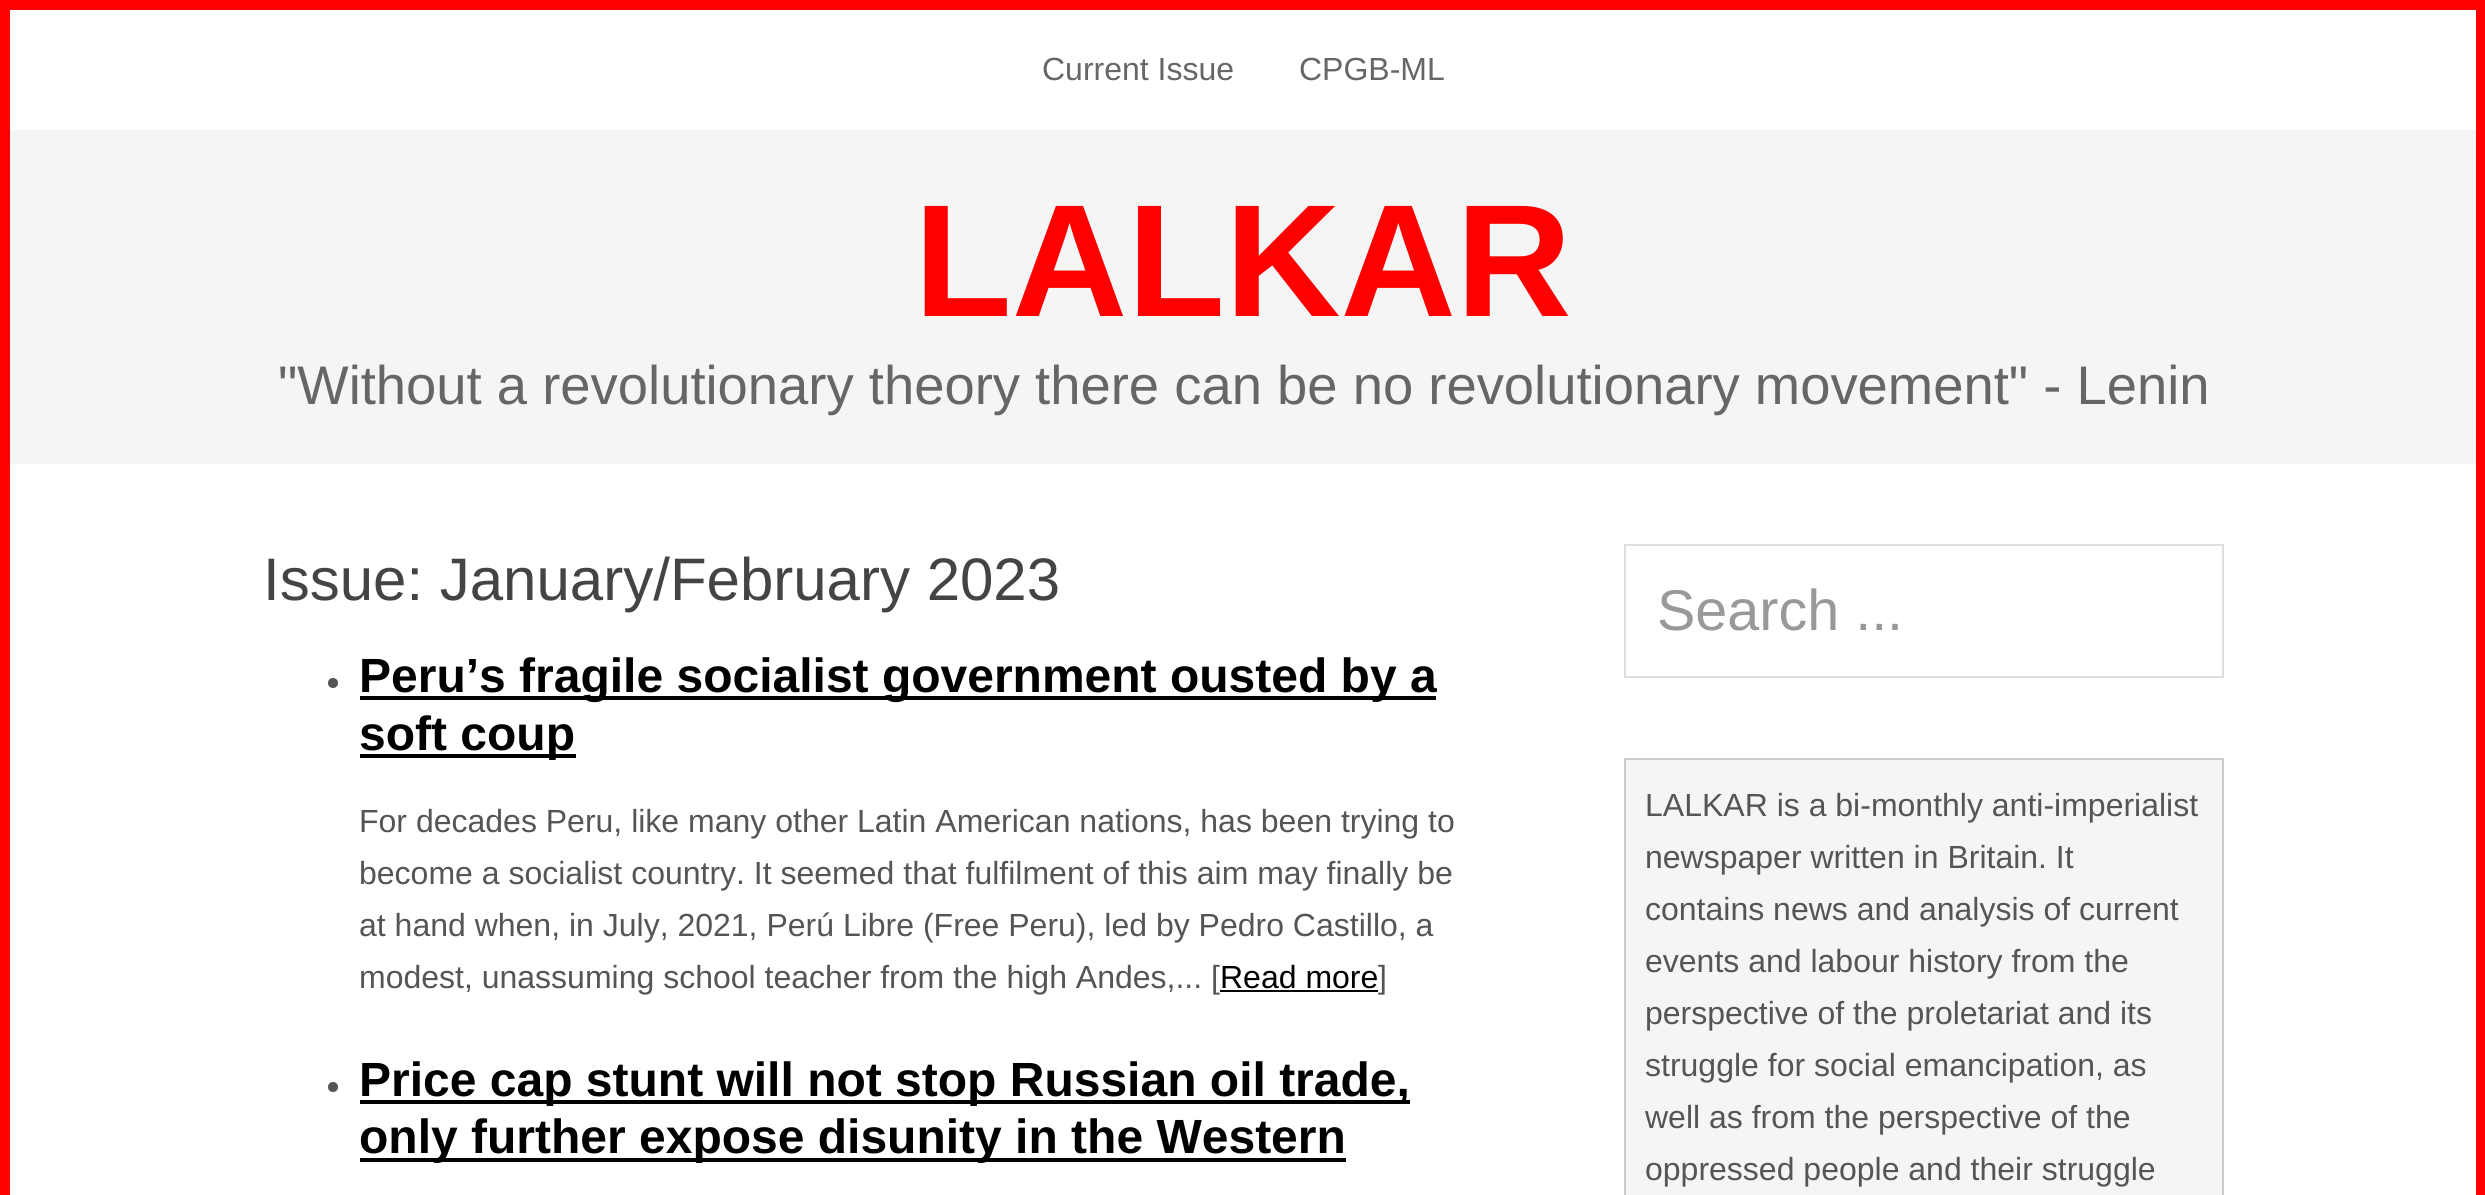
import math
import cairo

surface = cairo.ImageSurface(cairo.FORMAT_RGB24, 2485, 1195)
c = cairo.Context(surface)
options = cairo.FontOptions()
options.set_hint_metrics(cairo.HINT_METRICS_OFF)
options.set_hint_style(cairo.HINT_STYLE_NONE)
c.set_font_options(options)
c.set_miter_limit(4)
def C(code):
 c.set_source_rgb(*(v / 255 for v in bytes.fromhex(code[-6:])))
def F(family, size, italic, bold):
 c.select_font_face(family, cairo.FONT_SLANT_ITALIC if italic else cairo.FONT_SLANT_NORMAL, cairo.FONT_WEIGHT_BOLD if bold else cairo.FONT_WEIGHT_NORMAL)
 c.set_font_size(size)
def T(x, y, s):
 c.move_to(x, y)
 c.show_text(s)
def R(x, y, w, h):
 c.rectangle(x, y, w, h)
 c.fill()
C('ffffff')
c.paint()
c.rectangle(5,5,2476,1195)
C('ff0000')
c.set_line_width(10)
c.stroke()
F('Liberation Sans',32,0,0)
C('666666')
T(1042,80,'Current Issue')
T(1299,80,'CPGB-ML')
C('f5f5f5')
R(10,130,2466,334)
F('Liberation Sans',160,0,1)
C('ff0000')
T(914,316,'LALKAR')
F('Liberation Sans',54.4,0,0)
C('666666')
T(278,404,'"Without a revolutionary theory there can be no revolutionary movement" - Lenin')
F('Liberation Sans',60,0,0)
C('444444')
T(263,600,'Issue: January/February 2023')
C('555555')
c.new_path()
c.arc(333,683,5,0,2 * math.pi)
c.fill()
C('000000')
R(360,696,1076,4)
F('Liberation Sans',48,0,1)
T(359,692,'Peru’s fragile socialist government ousted by a')
R(360,754,216,4)
T(359,750,'soft coup')
F('Liberation Sans',32,0,0)
C('555555')
T(359,832,'For decades Peru, like many other Latin American nations, has been trying to')
T(359,884,'become a socialist country. It seemed that fulfilment of this aim may finally be')
T(359,936,'at hand when, in July, 2021, Perú Libre (Free Peru), led by Pedro Castillo, a')
T(359,988,'modest, unassuming school teacher from the high Andes,... [')
C('000000')
T(1220,988,'Read more')
R(1220,990,158,2)
C('555555')
T(1378,988,']')
c.new_path()
c.arc(333,1087,5,0,2 * math.pi)
c.fill()
C('000000')
R(360,1100,1050,4)
F('Liberation Sans',48,0,1)
T(359,1096,'Price cap stunt will not stop Russian oil trade,')
R(360,1158,986,4)
T(359,1153,'only further expose disunity in the Western')
c.rectangle(1625,545,598,132)
C('dddddd')
c.set_line_width(2)
c.stroke()
F('Liberation Sans',57.5,0,0)
C('999999')
T(1657,630,'Search ...')
C('f5f5f5')
c.rectangle(1625,759,598,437)
c.fill_preserve()
C('cccccc')
c.stroke()
F('Liberation Sans',32,0,0)
C('555555')
T(1645,816,'LALKAR is a bi-monthly anti-imperialist')
T(1645,868,'newspaper written in Britain. It')
T(1645,920,'contains news and analysis of current')
T(1645,972,'events and labour history from the')
T(1645,1024,'perspective of the proletariat and its')
T(1645,1076,'struggle for social emancipation, as')
T(1645,1128,'well as from the perspective of the')
T(1645,1180,'oppressed people and their struggle')
surface.write_to_png('o.png')
